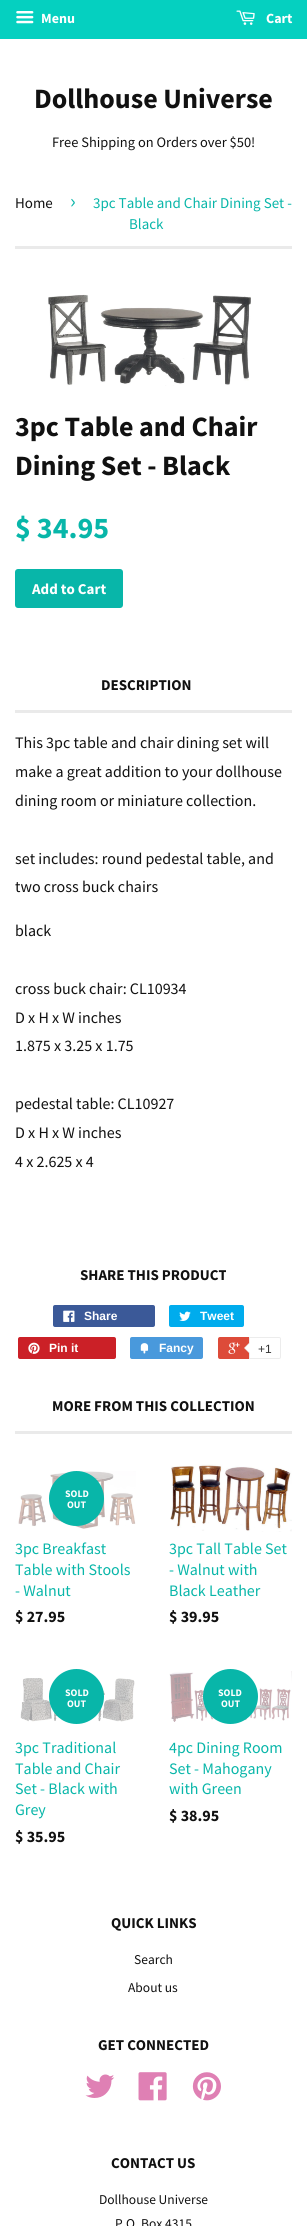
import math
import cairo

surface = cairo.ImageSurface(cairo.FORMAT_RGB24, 307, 2226)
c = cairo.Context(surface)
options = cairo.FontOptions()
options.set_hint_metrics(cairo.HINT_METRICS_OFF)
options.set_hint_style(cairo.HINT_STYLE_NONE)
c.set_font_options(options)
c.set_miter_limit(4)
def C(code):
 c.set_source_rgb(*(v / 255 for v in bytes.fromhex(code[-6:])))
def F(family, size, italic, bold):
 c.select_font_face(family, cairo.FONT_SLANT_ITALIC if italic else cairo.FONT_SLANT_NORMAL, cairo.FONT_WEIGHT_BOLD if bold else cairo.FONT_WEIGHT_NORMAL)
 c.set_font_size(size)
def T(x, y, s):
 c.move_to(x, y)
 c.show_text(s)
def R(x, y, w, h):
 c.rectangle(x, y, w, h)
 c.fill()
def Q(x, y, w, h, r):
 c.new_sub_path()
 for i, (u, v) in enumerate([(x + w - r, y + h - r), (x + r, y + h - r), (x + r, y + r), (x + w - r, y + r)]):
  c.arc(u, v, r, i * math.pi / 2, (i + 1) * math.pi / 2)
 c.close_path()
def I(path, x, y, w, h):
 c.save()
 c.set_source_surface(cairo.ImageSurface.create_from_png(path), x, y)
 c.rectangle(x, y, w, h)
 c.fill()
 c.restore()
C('ffffff')
c.paint()
C('05d0c0')
R(0,0,307,39)
I('1.png',16,11,18,13)
F('Source Sans Pro',14,0,1)
C('ffffff')
T(41,23,'Menu')
I('2.png',236,10,19,15)
T(266,23,'Cart')
F('Source Sans Pro',28,0,1)
C('111111')
T(34,108,'Dollhouse Universe')
F('Source Sans Pro',14.4,0,0)
T(52,147,'Free Shipping on Orders over $50!')
C('eaeaea')
R(15,246,277,3)
F('Source Sans Pro',15,0,0)
C('111111')
T(15,208,'Home')
F('Source Sans Pro',21,0,0)
C('08b6a9')
T(70,208,'›')
F('Source Sans Pro',15,0,0)
T(93,208,'3pc Table and Chair Dining Set -')
T(129,229,'Black')
I('3.png',48,294,203,92)
F('Source Sans Pro',28,0,1)
C('111111')
T(15,436,'3pc Table and Chair')
T(15,475,'Dining Set - Black')
F('Source Sans Pro',30,0,1)
C('08b6a9')
T(15,538,'$ 34.95')
Q(15,569,108,39,3)
c.fill()
F('Source Sans Pro',15,0,1)
C('ffffff')
T(32,594,'Add to Cart')
C('eaeaea')
R(15,710,277,3)
C('111111')
T(101,690,'DESCRIPTION')
F('Source Sans Pro',16,0,0)
T(15,748,'This 3pc table and chair dining set will')
T(15,777,'make a great addition to your dollhouse')
T(15,806,'dining room or miniature collection.')
T(15,864,'set includes: round pedestal table, and')
T(15,892,'two cross buck chairs')
T(15,936,'black')
T(15,994,'cross buck chair: CL10934')
T(15,1023,'D x H x W inches')
T(15,1051,'1.875 x 3.25 x 1.75')
T(15,1109,'pedestal table: CL10927')
T(15,1138,'D x H x W inches')
T(15,1167,'4 x 2.625 x 4')
F('Source Sans Pro',15,0,1)
T(80,1280,'SHARE THIS PRODUCT')
C('3b5998')
Q(53,1305,102,22,2)
c.fill()
I('4.png',63,1310,12,12)
F('Liberation Sans',12,0,1)
C('ffffff')
T(84,1320,'Share')
C('00aced')
Q(169,1305,75,22,2)
c.fill()
I('5.png',179,1311,12,10)
C('ffffff')
T(200,1320,'Tweet')
C('cb2027')
Q(18,1337,98,22,2)
c.fill()
I('6.png',28,1342,12,12)
C('ffffff')
T(49,1352,'Pin it')
C('4999dc')
Q(130,1337,73,22,2)
c.fill()
I('7.png',140,1343,9,11)
C('ffffff')
T(159,1352,'Fancy')
C('dd4b39')
Q(218,1337,61,22,2)
c.fill()
I('8.png',228,1342,12,12)
C('ffffff')
c.new_path()
c.move_to(249.5,1337.5)
c.line_to(279,1337.5)
c.curve_to(280,1337.5,280.5,1338,280.5,1339)
c.line_to(280.5,1357)
c.curve_to(280.5,1358,280,1358.5,279,1358.5)
c.line_to(249.5,1358.5)
c.close_path()
c.fill_preserve()
C('ececec')
c.set_line_width(1)
c.stroke()
c.new_path()
c.move_to(250,1342)
c.line_to(250,1354)
c.line_to(244,1348)
c.close_path()
c.fill()
C('ffffff')
c.new_path()
c.move_to(251,1342)
c.line_to(251,1354)
c.line_to(245,1348)
c.close_path()
c.fill()
F('Liberation Sans',12,0,0)
C('333333')
T(258,1353,'+1')
C('eaeaea')
R(15,1431,277,3)
F('Source Sans Pro',15,0,1)
C('111111')
T(52,1411,'MORE FROM THIS COLLECTION')
I('9.png',18,1471,118,58)
C('08b6a9')
c.arc(76.5,1498.5,27.5,0,2 * math.pi)
c.fill()
F('Source Sans Pro',10,0,1)
C('ffffff')
T(65,1497,'SOLD')
T(67,1508,'OUT')
F('Source Sans Pro',16,0,0)
C('08b6a9')
T(15,1554,'3pc Breakfast')
T(15,1575,'Table with Stools')
T(15,1596,'- Walnut')
F('Source Sans Pro',16,0,1)
C('111111')
T(15,1622,'$ 27.95')
I('10.png',170,1464,122,68)
F('Source Sans Pro',16,0,0)
C('08b6a9')
T(169,1554,'3pc Tall Table Set')
T(169,1575,'- Walnut with')
T(169,1596,'Black Leather')
F('Source Sans Pro',16,0,1)
C('111111')
T(169,1622,'$ 39.95')
I('11.png',20,1678,115,44)
C('08b6a9')
c.arc(76.5,1696.5,27.5,0,2 * math.pi)
c.fill()
F('Source Sans Pro',10,0,1)
C('ffffff')
T(65,1696,'SOLD')
T(67,1707,'OUT')
F('Source Sans Pro',16,0,0)
C('08b6a9')
T(15,1753,'3pc Traditional')
T(15,1774,'Table and Chair')
T(15,1794,'Set - Black with')
T(15,1815,'Grey')
F('Source Sans Pro',16,0,1)
C('111111')
T(15,1842,'$ 35.95')
I('12.png',169,1671,123,51)
C('08b6a9')
c.arc(230.5,1696.5,27.5,0,2 * math.pi)
c.fill()
F('Source Sans Pro',10,0,1)
C('ffffff')
T(218,1696,'SOLD')
T(221,1707,'OUT')
F('Source Sans Pro',16,0,0)
C('08b6a9')
T(169,1753,'4pc Dining Room')
T(169,1774,'Set - Mahogany')
T(169,1794,'with Green')
F('Source Sans Pro',16,0,1)
C('111111')
T(169,1821,'$ 38.95')
F('Source Sans Pro',15,0,1)
T(111,1928,'QUICK LINKS')
F('Source Sans Pro',13.5,0,0)
T(134,1964,'Search')
T(128,1992,'About us')
F('Source Sans Pro',15,0,1)
T(98,2050,'GET CONNECTED')
I('13.png',85,2074,30,24)
I('14.png',138,2072,29,29)
I('15.png',192,2072,29,29)
T(111,2168,'CONTACT US')
F('Source Sans Pro',13.5,0,0)
T(99,2204,'Dollhouse Universe')
T(115,2228,'P.O. Box 4315')
surface.write_to_png('o.png')
